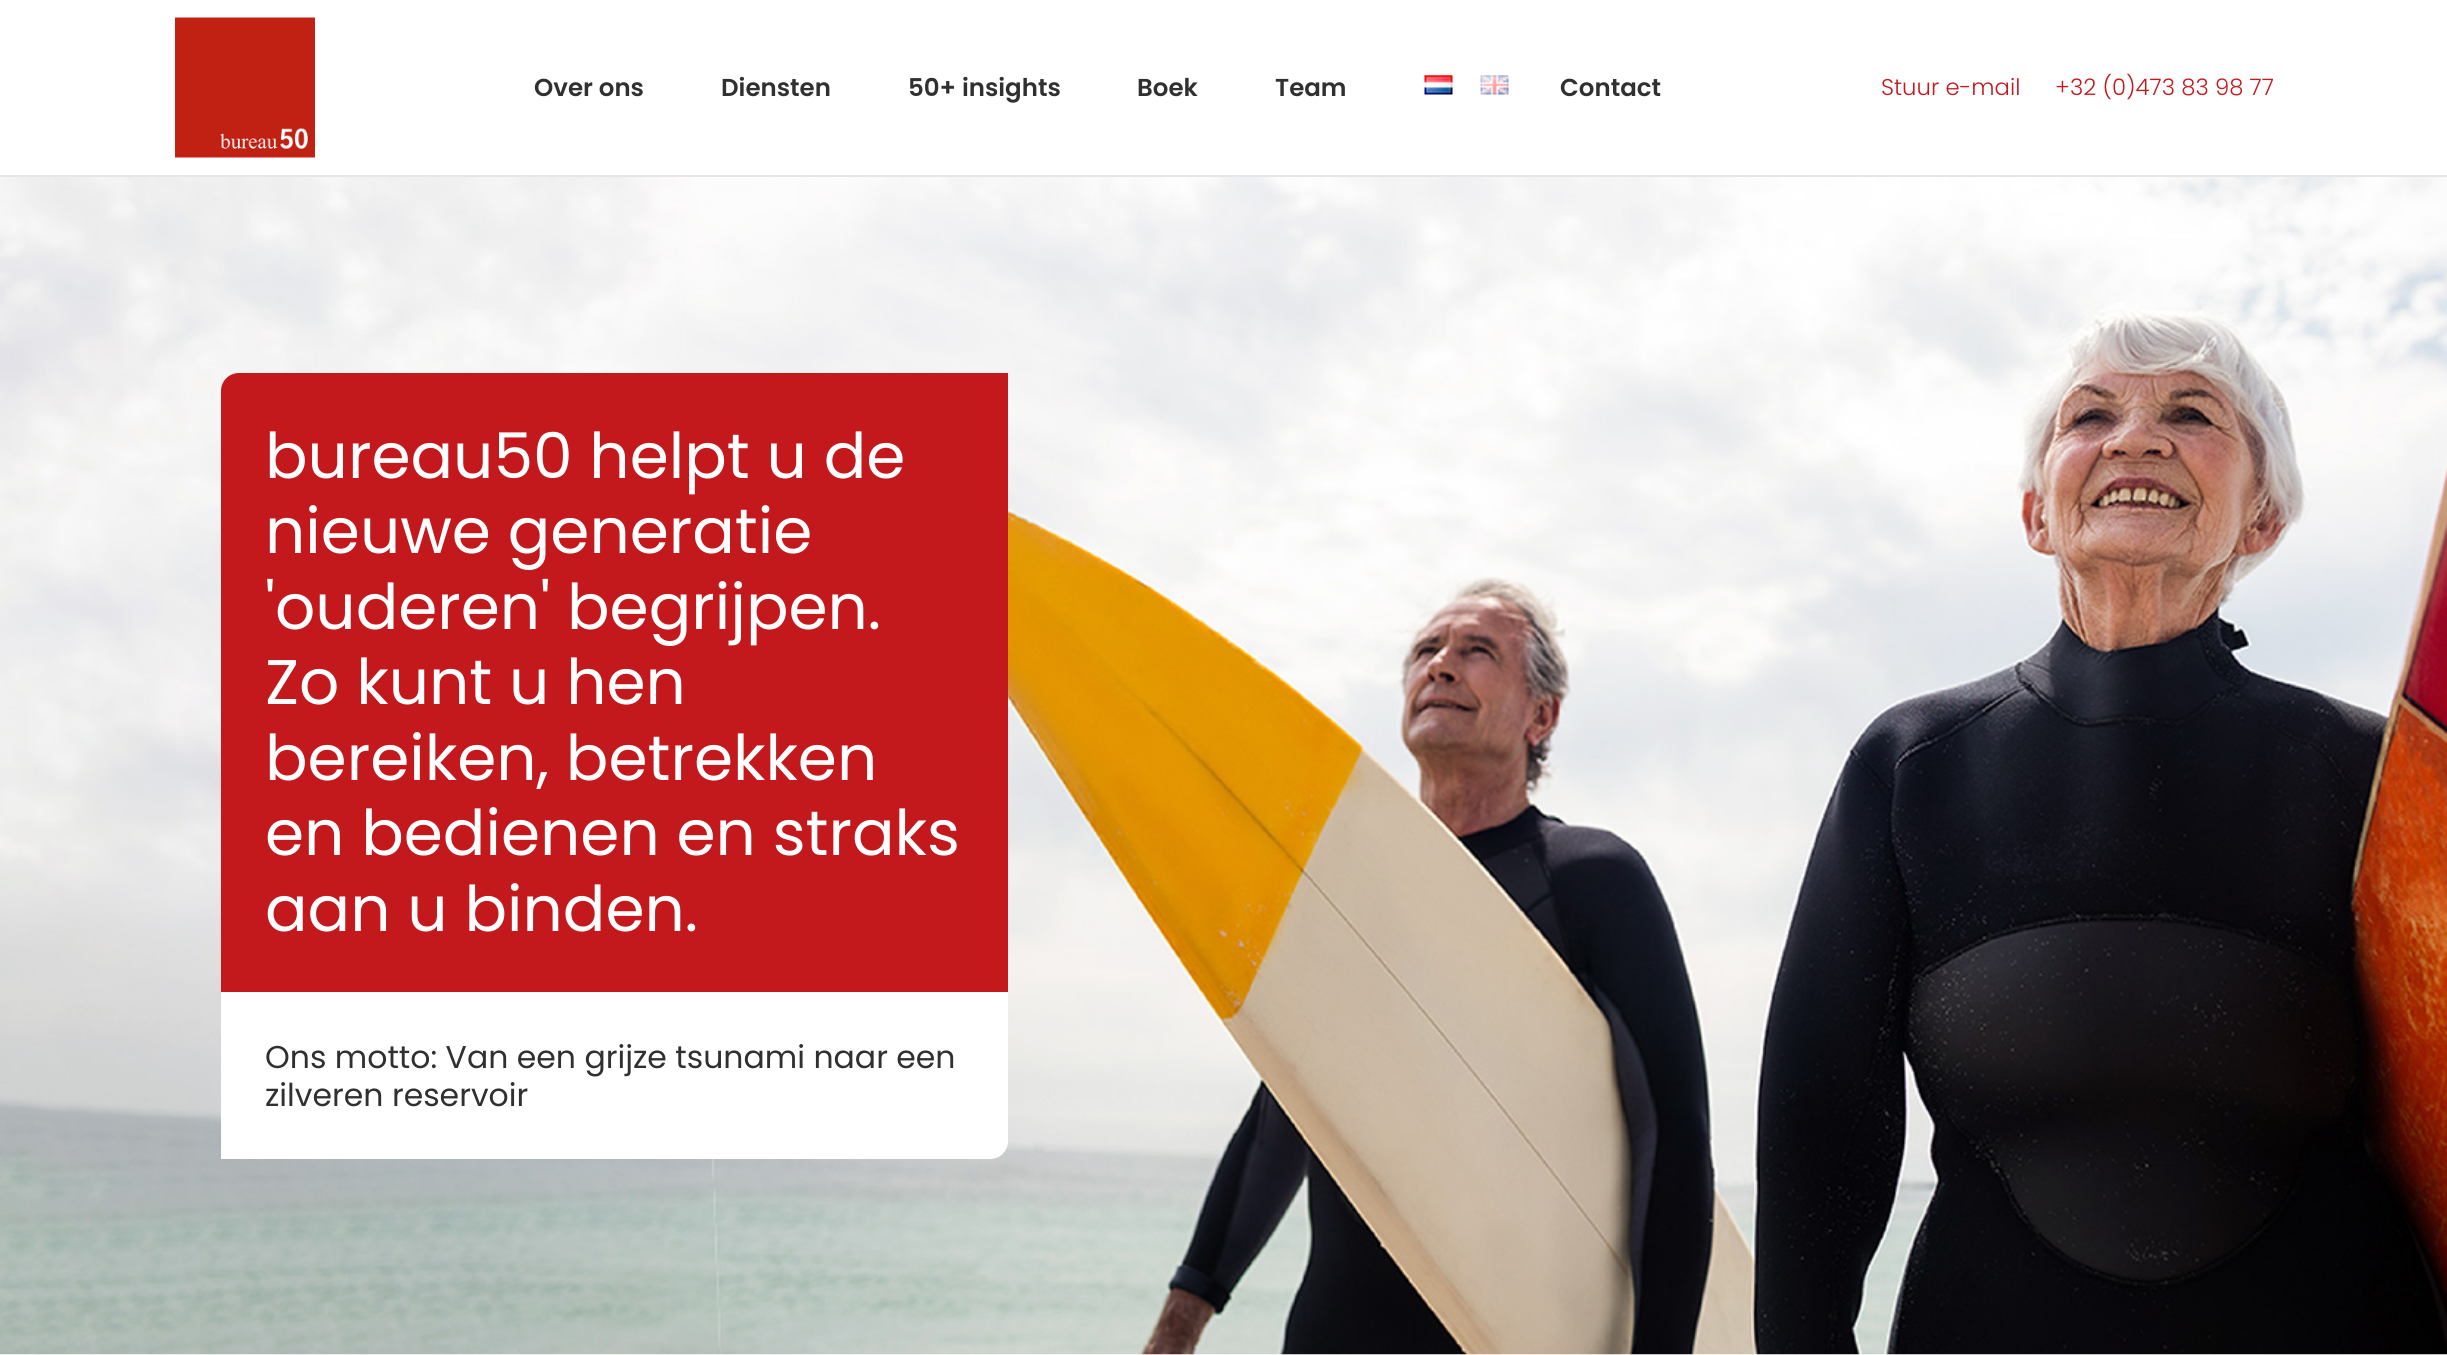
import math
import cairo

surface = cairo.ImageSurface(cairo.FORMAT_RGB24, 2447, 1355)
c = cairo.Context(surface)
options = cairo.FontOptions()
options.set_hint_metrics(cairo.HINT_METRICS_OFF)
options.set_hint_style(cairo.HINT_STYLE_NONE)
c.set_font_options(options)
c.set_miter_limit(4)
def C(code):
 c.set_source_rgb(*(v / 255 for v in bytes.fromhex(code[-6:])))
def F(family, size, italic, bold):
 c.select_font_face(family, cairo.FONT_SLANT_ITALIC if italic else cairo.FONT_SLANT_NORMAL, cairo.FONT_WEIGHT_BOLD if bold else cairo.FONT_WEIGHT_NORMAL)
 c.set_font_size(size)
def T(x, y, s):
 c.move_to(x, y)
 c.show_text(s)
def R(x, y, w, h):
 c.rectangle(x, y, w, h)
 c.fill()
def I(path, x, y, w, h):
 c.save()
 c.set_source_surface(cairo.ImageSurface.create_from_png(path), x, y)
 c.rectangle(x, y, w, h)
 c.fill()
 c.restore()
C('ffffff')
c.paint()
C('e6e6e6')
R(0,175,2447,2)
I('1.png',175,17,140,141)
F('Poppins SemiBold',24.5,0,0)
C('303030')
T(534,96,'Over ons')
T(721,96,'Diensten')
T(908,96,'50+ insights')
T(1137,96,'Boek')
T(1275,96,'Team')
I('2.png',1424,75,29,20)
I('3.png',1480,75,29,20)
T(1560,96,'Contact')
F('Poppins Light',22.75,0,0)
C('c3191d')
T(1881,95,'Stuur e-mail')
T(2055,95,'+32 (0)473 83 98 77')
I('4.png',0,177,2447,1178)
c.new_path()
c.move_to(239,373)
c.line_to(1008,373)
c.line_to(1008,992)
c.line_to(221,992)
c.line_to(221,391)
c.curve_to(221,381,229,373,239,373)
c.close_path()
c.fill()
F('Poppins',63,0,0)
C('ffffff')
T(265,478,'bureau50 helpt u de')
T(265,553,'nieuwe generatie')
T(265,629,'\'ouderen\' begrijpen.')
T(265,704,'Zo kunt u hen')
T(265,780,'bereiken, betrekken')
T(265,855,'en bedienen en straks')
T(265,931,'aan u binden.')
c.new_path()
c.move_to(221,992)
c.line_to(1008,992)
c.line_to(1008,1141)
c.curve_to(1008,1151,1000,1159,990,1159)
c.line_to(221,1159)
c.close_path()
c.fill()
F('Poppins',31.5,0,0)
C('303030')
T(265,1068,'Ons motto: Van een grijze tsunami naar een')
T(265,1106,'zilveren reservoir')
surface.write_to_png('o.png')
